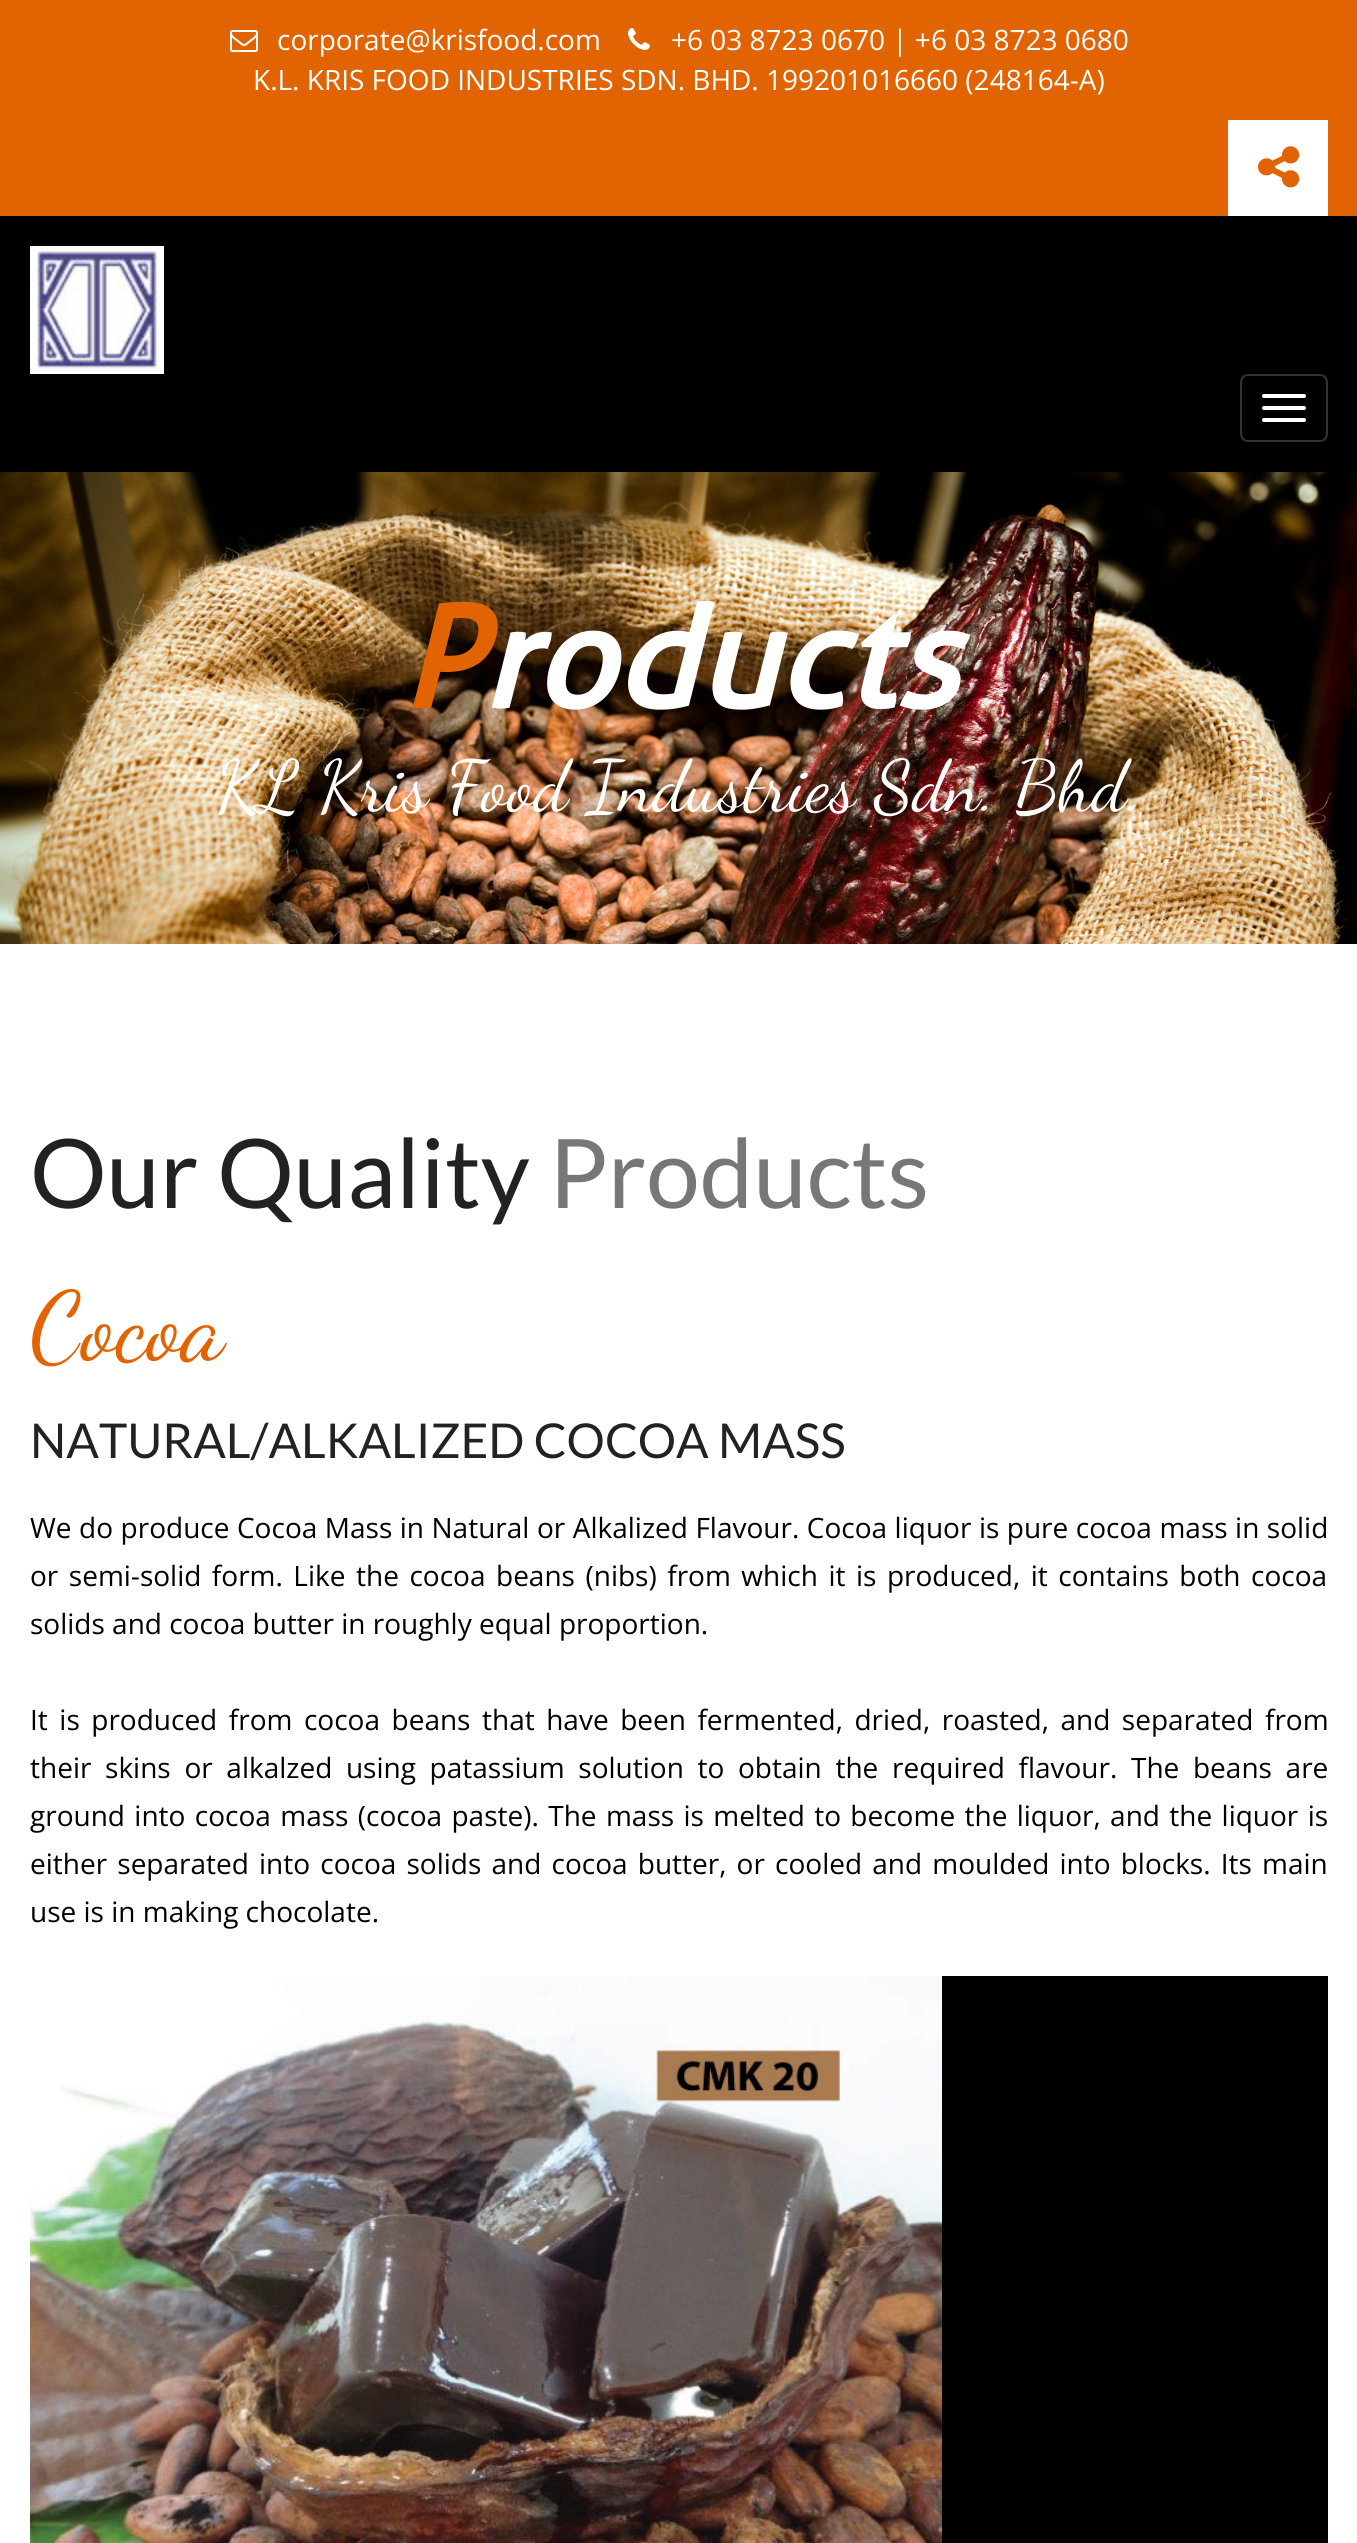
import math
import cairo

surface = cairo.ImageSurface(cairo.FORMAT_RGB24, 1357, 2543)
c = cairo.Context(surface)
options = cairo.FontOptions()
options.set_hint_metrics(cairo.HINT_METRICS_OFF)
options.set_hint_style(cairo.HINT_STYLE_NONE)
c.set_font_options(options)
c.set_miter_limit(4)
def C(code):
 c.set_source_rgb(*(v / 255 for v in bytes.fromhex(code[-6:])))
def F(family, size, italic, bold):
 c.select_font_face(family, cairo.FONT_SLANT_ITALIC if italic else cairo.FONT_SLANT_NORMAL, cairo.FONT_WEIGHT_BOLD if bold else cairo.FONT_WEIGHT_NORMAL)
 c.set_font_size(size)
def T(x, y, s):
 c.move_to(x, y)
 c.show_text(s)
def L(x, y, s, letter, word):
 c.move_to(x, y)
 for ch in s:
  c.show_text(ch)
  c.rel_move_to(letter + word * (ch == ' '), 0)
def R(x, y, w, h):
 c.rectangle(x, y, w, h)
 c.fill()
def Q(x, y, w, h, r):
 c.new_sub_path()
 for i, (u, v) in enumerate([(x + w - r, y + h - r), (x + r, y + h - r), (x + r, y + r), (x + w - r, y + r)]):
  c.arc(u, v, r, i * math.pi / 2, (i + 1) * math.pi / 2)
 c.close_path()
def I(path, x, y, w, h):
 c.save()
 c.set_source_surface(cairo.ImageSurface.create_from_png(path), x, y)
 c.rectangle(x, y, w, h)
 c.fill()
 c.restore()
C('ffffff')
c.paint()
C('e26302')
R(0,0,1357,216)
I('1.png',230,30,28,22)
F('Open Sans',28,0,0)
C('ffffff')
T(277,50,'corporate@krisfood.com')
I('2.png',628,28,22,22)
T(671,50,'+6 03 8723 0670 | +6 03 8723 0680')
T(253,90,'K.L. KRIS FOOD INDUSTRIES SDN. BHD. 199201016660 (248164-A)')
R(1228,120,100,96)
I('3.png',1258,146,42,42)
C('000000')
R(0,216,1357,256)
I('4.png',30,246,134,128)
Q(1241,375,86,66,7)
C('333333')
c.stroke()
C('ffffff')
Q(1262,394,44,4,2)
c.fill()
Q(1262,406,44,4,2)
c.fill()
Q(1262,418,44,4,2)
c.fill()
I('5.png',0,472,1357,472)
F('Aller',140,1,1)
C('e26302')
T(401,708,'P')
C('ffffff')
T(481,708,'roducts')
F('Dancing Script',72,0,0)
T(216,810,'KL Kris Food Industries Sdn. Bhd.')
F('Lato',96,0,0)
C('222222')
T(30,1208,'Our Quality')
C('777777')
T(549,1208,'Products')
F('Dancing Script',96,0,0)
C('e26302')
T(30,1358,'Cocoa')
F('Lato',48,0,0)
C('222222')
T(30,1458,'NATURAL/ALKALIZED COCOA MASS')
F('Open Sans',28,0,0)
C('000000')
L(30,1538,'We do produce Cocoa Mass in Natural or Alkalized Flavour. Cocoa liquor is pure cocoa mass in solid',0,.25)
L(30,1586,'or semi-solid form. Like the cocoa beans (nibs) from which it is produced, it contains both cocoa',0,3.25)
T(30,1634,'solids and cocoa butter in roughly equal proportion.')
L(30,1730,'It is produced from cocoa beans that have been fermented, dried, roasted, and separated from',0,4.25)
L(30,1778,'their skins or alkalzed using patassium solution to obtain the required flavour. The beans are',0,6.4)
L(30,1826,'ground into cocoa mass (cocoa paste). The mass is melted to become the liquor, and the liquor is',0,2.1)
L(30,1874,'either separated into cocoa solids and cocoa butter, or cooled and moulded into blocks. Its main',0,2.9)
T(30,1922,'use is in making chocolate.')
R(942,1976,386,567)
I('6.png',30,1976,912,567)
surface.write_to_png('o.png')
